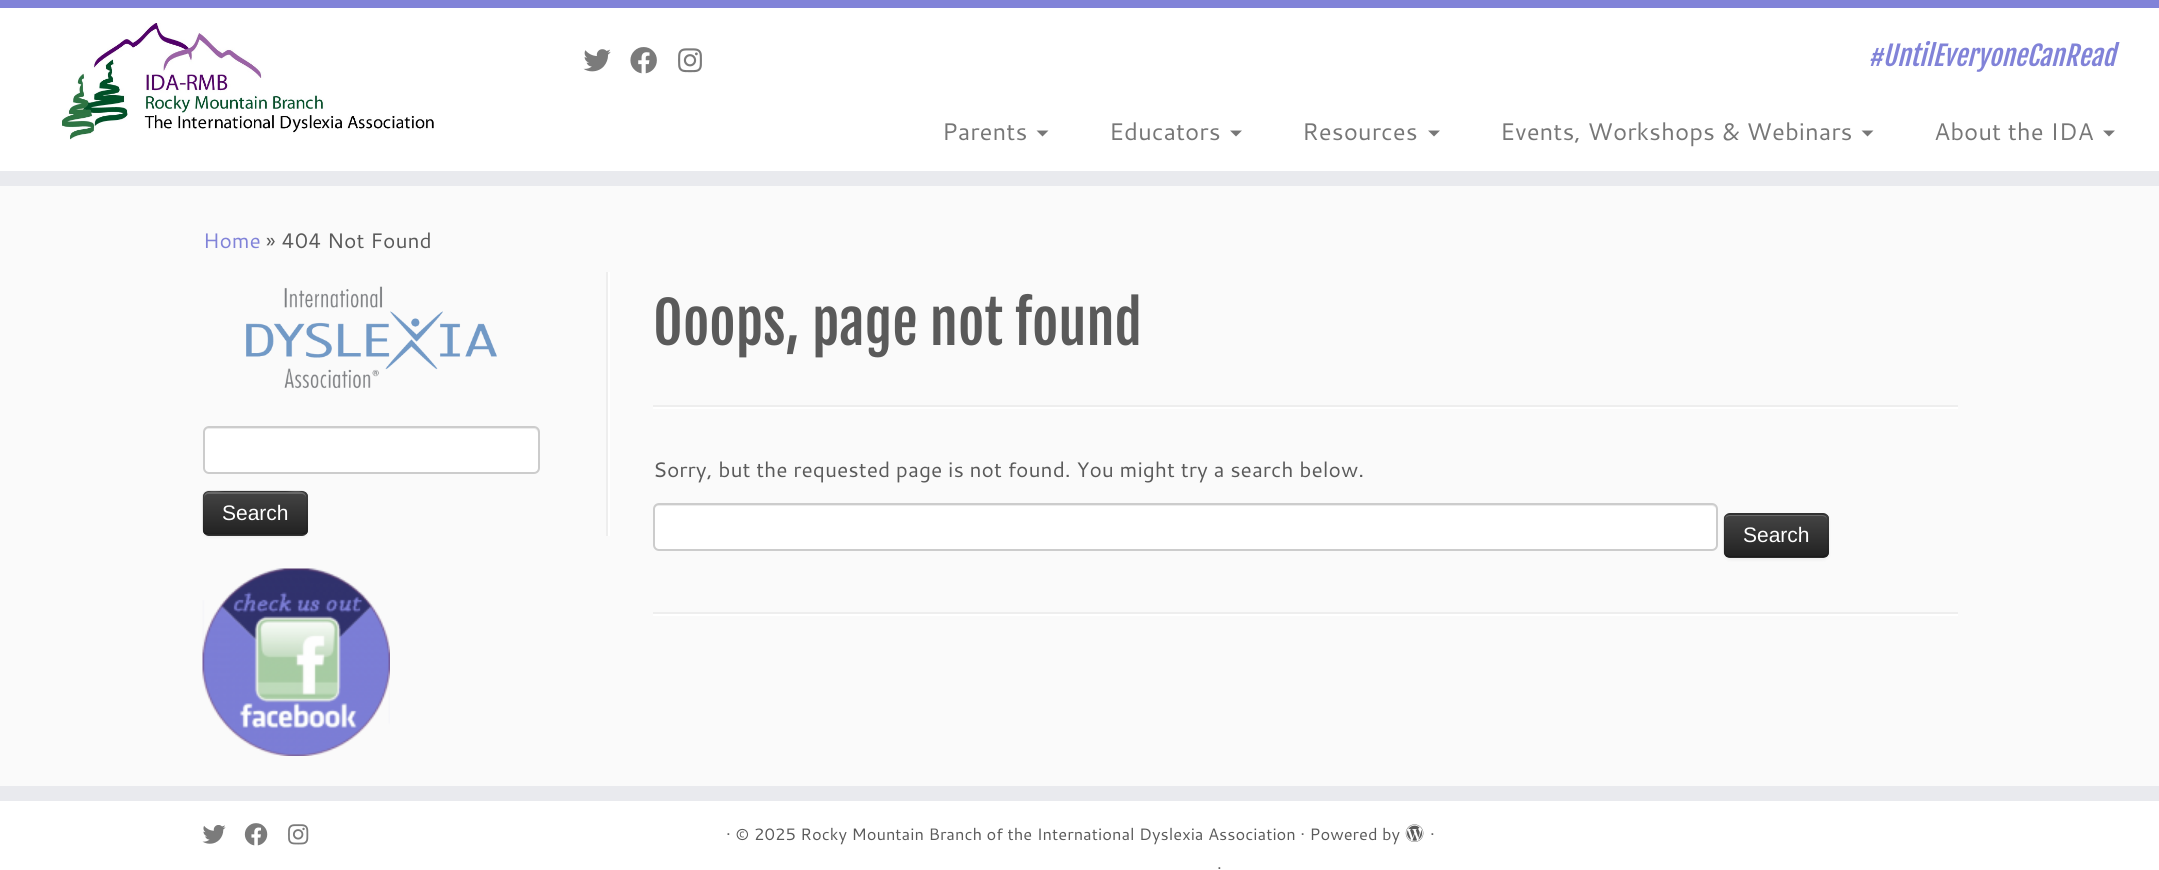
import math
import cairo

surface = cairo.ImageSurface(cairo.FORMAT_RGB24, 2159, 870)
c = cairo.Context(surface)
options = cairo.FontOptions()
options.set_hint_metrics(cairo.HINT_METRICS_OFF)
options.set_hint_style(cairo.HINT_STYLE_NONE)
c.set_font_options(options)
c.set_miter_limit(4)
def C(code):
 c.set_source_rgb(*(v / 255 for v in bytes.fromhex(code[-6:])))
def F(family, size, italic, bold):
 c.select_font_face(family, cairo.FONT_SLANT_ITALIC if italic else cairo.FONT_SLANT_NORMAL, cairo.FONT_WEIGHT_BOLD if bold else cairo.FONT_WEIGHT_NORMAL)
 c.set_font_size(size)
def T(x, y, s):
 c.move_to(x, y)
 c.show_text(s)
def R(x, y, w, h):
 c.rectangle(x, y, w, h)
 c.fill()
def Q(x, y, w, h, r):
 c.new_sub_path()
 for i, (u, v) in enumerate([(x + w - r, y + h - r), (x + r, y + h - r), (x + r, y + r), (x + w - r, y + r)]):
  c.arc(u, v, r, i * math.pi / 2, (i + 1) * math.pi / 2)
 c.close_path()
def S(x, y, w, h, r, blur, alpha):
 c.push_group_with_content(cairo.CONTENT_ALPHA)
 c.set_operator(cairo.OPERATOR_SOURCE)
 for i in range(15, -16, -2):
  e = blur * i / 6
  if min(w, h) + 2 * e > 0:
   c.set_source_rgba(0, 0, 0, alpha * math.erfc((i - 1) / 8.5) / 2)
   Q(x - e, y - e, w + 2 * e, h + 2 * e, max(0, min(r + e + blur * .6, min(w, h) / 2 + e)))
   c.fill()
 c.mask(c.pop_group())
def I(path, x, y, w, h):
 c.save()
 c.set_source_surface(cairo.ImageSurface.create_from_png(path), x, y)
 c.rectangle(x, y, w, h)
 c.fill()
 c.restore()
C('fafafa')
c.paint()
C('ffffff')
R(0,8,2159,163)
C('8183d8')
R(0,0,2159,8)
C('e9eaee')
R(0,171,2159,15)
I('1.png',62,23,372,117)
I('2.png',583,49,28,23)
I('3.png',630,47,27,27)
I('4.png',678,48,24,25)
F('Fjalla One',27,1,0)
C('8183d8')
T(1868,66,'#UntilEveryoneCanRead')
F('Cantarell',24,0,0)
C('777777')
T(942,140,'Parents')
c.new_path()
c.move_to(1036.5,130.5)
c.line_to(1048.5,130.5)
c.line_to(1042.5,136.5)
c.close_path()
c.fill()
T(1109,140,'Educators')
c.new_path()
c.move_to(1230,130.5)
c.line_to(1242,130.5)
c.line_to(1236,136.5)
c.close_path()
c.fill()
T(1302,140,'Resources')
c.new_path()
c.move_to(1428,130.5)
c.line_to(1440,130.5)
c.line_to(1434,136.5)
c.close_path()
c.fill()
T(1500,140,'Events, Workshops & Webinars')
c.new_path()
c.move_to(1861.5,130.5)
c.line_to(1873.5,130.5)
c.line_to(1867.5,136.5)
c.close_path()
c.fill()
T(1934,140,'About the IDA')
c.new_path()
c.move_to(2103,130.5)
c.line_to(2115,130.5)
c.line_to(2109,136.5)
c.close_path()
c.fill()
F('Cantarell',21,0,0)
C('8183d8')
T(203,248,'Home')
C('5a5a5a')
T(266,248,'» 404 Not Found')
C('eeeeee')
R(606,272,2,264)
I('5.png',246,286,251,103)
C('ffffff')
R(608,272,2,264)
Q(203,426,337,48,6)
c.fill()
C('ececec')
c.new_path()
c.move_to(208,429)
c.line_to(534,429)
c.curve_to(536,429,538,431,538,434)
c.line_to(538,471)
c.curve_to(539,470,539,469,539,468)
c.line_to(539,433)
c.curve_to(539,430,537,428,534,428)
c.line_to(209,428)
c.curve_to(206,428,204,430,204,433)
c.line_to(204,434)
c.curve_to(204,431,206,429,208,429)
c.close_path()
c.fill()
Q(204,427,335,46,5)
C('cccccc')
c.stroke()
C('000000')
S(203,492,105,45,6,1.5,.05)
C('363636')
Q(203,491,105,45,6)
c.fill()
c.save()
Q(203,491,105,45,6)
c.clip()
gradient = cairo.LinearGradient(255,492,255,534)
gradient.add_color_stop_rgba(0,0.267,0.267,0.267,1)
gradient.add_color_stop_rgba(1,0.133,0.133,0.133,1)
c.set_source(gradient)
R(203,492,105,42)
c.restore()
c.set_source_rgba(1,1,1,0.2)
c.new_path()
c.move_to(208,494)
c.line_to(302,494)
c.curve_to(304,494,306,496,306,498)
c.curve_to(306,488,291,492,286,492)
c.line_to(224,492)
c.curve_to(219,492,204,488,204,498)
c.curve_to(204,496,206,494,208,494)
c.close_path()
c.fill()
c.new_path()
c.move_to(305,533)
c.line_to(302,534.5)
c.line_to(208,534.5)
c.line_to(205,533)
c.set_source_rgba(0,0,0,0.25)
c.set_line_width(1.5)
c.stroke()
c.new_path()
c.move_to(205,533)
c.curve_to(202.5,531,203,527,203,524)
c.line_to(203,513)
c.curve_to(203,489,199.5,491,224,491)
c.line_to(286,491)
c.curve_to(310.5,491,307,489,307,513)
c.line_to(307,524)
c.curve_to(307,527,307.5,531,305,533)
c.set_source_rgba(0,0,0,0.1)
c.stroke()
F('Liberation Sans',21,0,0)
C('ffffff')
T(222,520,'Search')
I('6.png',202,568,188,188)
F('Fjalla One',57,0,0)
C('5a5a5a')
T(653,345,'Ooops, page not found')
C('eeeeee')
R(653,405,1305,2)
C('ffffff')
R(653,407,1305,2)
F('Cantarell',21,0,0)
C('5a5a5a')
T(653,477,'Sorry, but the requested page is not found. You might try a search below.')
C('ffffff')
Q(653,503,1065,48,6)
c.fill()
C('ececec')
c.new_path()
c.move_to(658,506)
c.line_to(1712,506)
c.curve_to(1714,506,1716,508,1716,510)
c.curve_to(1716,507,1714,504,1711,504)
c.line_to(659,504)
c.curve_to(656,504,654,507,654,510)
c.curve_to(654,508,656,506,658,506)
c.close_path()
c.fill()
Q(654,504,1063,46,5)
C('cccccc')
c.set_line_width(2)
c.stroke()
C('000000')
S(1724,515,105,45,6,1.5,.05)
C('363636')
Q(1724,513,105,45,6)
c.fill()
c.save()
Q(1724,513,105,45,6)
c.clip()
gradient = cairo.LinearGradient(1776,515,1776,557)
gradient.add_color_stop_rgba(0,0.267,0.267,0.267,1)
gradient.add_color_stop_rgba(1,0.133,0.133,0.133,1)
c.set_source(gradient)
R(1724,515,105,42)
c.restore()
C('696969')
c.new_path()
c.move_to(1730,516)
c.line_to(1822,516)
c.curve_to(1825,516,1827,518,1827,520)
c.curve_to(1827,517,1825,515,1822,515)
c.line_to(1730,515)
c.curve_to(1727,515,1725,517,1725,520)
c.curve_to(1725,518,1727,516,1730,516)
c.close_path()
c.fill()
c.new_path()
c.move_to(1826,555.5)
c.line_to(1823,557)
c.line_to(1729,557)
c.line_to(1726,555.5)
c.set_source_rgba(0,0,0,0.25)
c.set_line_width(1.5)
c.stroke()
c.new_path()
c.move_to(1726,555.5)
c.curve_to(1723.5,553.5,1724,549.5,1724,546.5)
c.line_to(1724,535.5)
c.curve_to(1724,511.5,1720.5,514,1745,514)
c.line_to(1807,514)
c.curve_to(1831.5,514,1828,511.5,1828,535.5)
c.line_to(1828,546.5)
c.curve_to(1828,549.5,1828.5,553.5,1826,555.5)
c.set_source_rgba(0,0,0,0.1)
c.stroke()
F('Liberation Sans',21,0,0)
C('ffffff')
T(1743,542,'Search')
C('eeeeee')
R(653,612,1305,2)
C('ffffff')
R(653,614,1305,2)
C('e9eaee')
R(0,786,2159,15)
C('ffffff')
R(0,801,2159,69)
I('7.png',202,825,24,19)
I('8.png',244,823,24,23)
I('9.png',288,824,21,21)
F('Cantarell',16.5,0,0)
C('5a5a5a')
T(726,840,'· © 2025 Rocky Mountain Branch of the International Dyslexia Association · Powered by')
I('10.png',1405,824,19,18)
T(1430,840,'·')
T(1217,874,'·')
surface.write_to_png('o.png')
